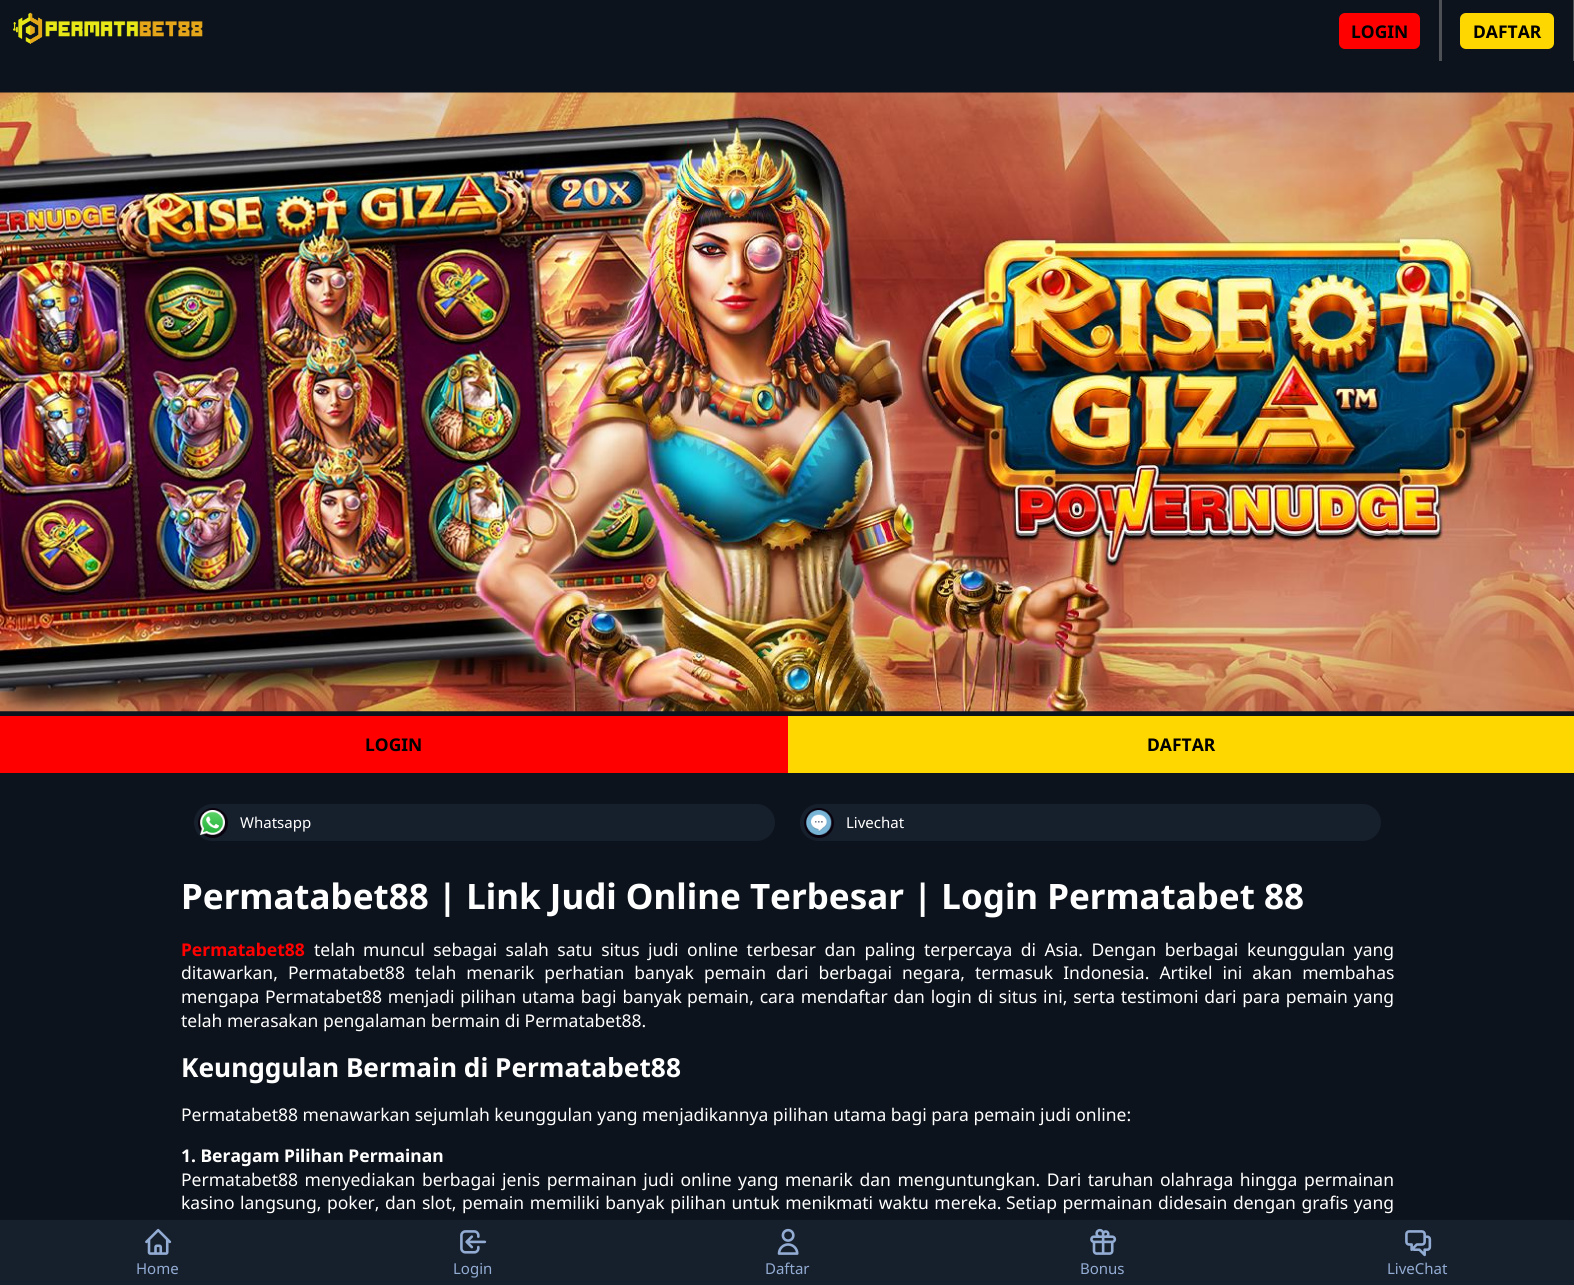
import math
import cairo

surface = cairo.ImageSurface(cairo.FORMAT_RGB24, 1574, 1285)
c = cairo.Context(surface)
options = cairo.FontOptions()
options.set_hint_metrics(cairo.HINT_METRICS_OFF)
options.set_hint_style(cairo.HINT_STYLE_NONE)
c.set_font_options(options)
c.set_miter_limit(4)
def C(code):
 c.set_source_rgb(*(v / 255 for v in bytes.fromhex(code[-6:])))
def F(family, size, italic, bold):
 c.select_font_face(family, cairo.FONT_SLANT_ITALIC if italic else cairo.FONT_SLANT_NORMAL, cairo.FONT_WEIGHT_BOLD if bold else cairo.FONT_WEIGHT_NORMAL)
 c.set_font_size(size)
def T(x, y, s):
 c.move_to(x, y)
 c.show_text(s)
def L(x, y, s, letter, word):
 c.move_to(x, y)
 for ch in s:
  c.show_text(ch)
  c.rel_move_to(letter + word * (ch == ' '), 0)
def R(x, y, w, h):
 c.rectangle(x, y, w, h)
 c.fill()
def Q(x, y, w, h, r):
 c.new_sub_path()
 for i, (u, v) in enumerate([(x + w - r, y + h - r), (x + r, y + h - r), (x + r, y + r), (x + w - r, y + r)]):
  c.arc(u, v, r, i * math.pi / 2, (i + 1) * math.pi / 2)
 c.close_path()
def I(path, x, y, w, h):
 c.save()
 c.set_source_surface(cairo.ImageSurface.create_from_png(path), x, y)
 c.rectangle(x, y, w, h)
 c.fill()
 c.restore()
C('0d131c')
c.paint()
I('1.png',13,12,190,32)
C('4d5054')
R(1439,0,3,61)
C('ff0000')
Q(1339,13,81,36,6)
c.fill()
F('Noto Sans',17.5,0,1)
C('000000')
T(1351,38,'LOGIN')
C('4d5054')
R(1573,0,1,61)
C('ffd700')
Q(1460,13,94,36,6)
c.fill()
C('000000')
T(1473,38,'DAFTAR')
I('2.png',0,92,1574,620)
C('ff0000')
R(0,716,788,57)
C('000000')
T(365,751,'LOGIN')
C('ffd700')
R(788,716,786,57)
C('000000')
T(1147,751,'DAFTAR')
C('161f2c')
Q(194,804,581,37,18.5)
c.fill()
C('09020e')
c.arc(213,823,15,0,2 * math.pi)
c.fill()
I('3.png',200,810,25,25)
F('Noto Sans',15,0,0)
C('ffffff')
T(240,828,'Whatsapp')
C('161f2c')
Q(800,804,581,37,18.5)
c.fill()
C('09020e')
c.arc(819,823,15,0,2 * math.pi)
c.fill()
I('4.png',806,810,26,25)
C('ffffff')
T(846,828,'Livechat')
F('Noto Sans',35,0,1)
T(181,909,'Permatabet88 | Link Judi Online Terbesar | Login Permatabet 88')
F('Noto Sans',17.5,0,1)
C('ff0000')
T(181,956,'Permatabet88')
F('Noto Sans',17.5,0,0)
C('ffffff')
T(314,956,'telah')
L(363,956,'muncul sebagai salah satu situs judi online terbesar dan paling terpercaya di Asia. Dengan berbagai',0,3.9)
L(1247,956,'keunggulan yang',0,3.9)
L(181,979,'ditawarkan, Permatabet88 telah menarik perhatian banyak pemain dari berbagai negara,',0,5.5)
L(975,979,'termasuk Indonesia. Artikel ini akan membahas',0,5.5)
L(181,1003,'mengapa Permatabet88 menjadi pilihan utama bagi banyak',0,1.25)
L(687,1003,'pemain, cara mendaftar dan login di situs ini, serta testimoni dari para pemain yang',0,1.25)
T(181,1027,'telah merasakan pengalaman bermain di Permatabet88.')
F('Noto Sans',26.25,0,1)
T(181,1077,'Keunggulan Bermain di Permatabet88')
F('Noto Sans',17.5,0,0)
T(181,1121,'Permatabet88 menawarkan sejumlah keunggulan yang menjadikannya pilihan utama bagi para pemain judi online:')
F('Noto Sans',17.5,0,1)
T(181,1162,'1. Beragam Pilihan Permainan')
F('Noto Sans',17.5,0,0)
L(181,1186,'Permatabet88 menyediakan',0,2)
L(422,1186,'berbagai jenis permainan judi online yang menarik dan menguntungkan. Dari taruhan olahraga hingga',0,2)
T(1304,1186,'permainan')
L(181,1209,'kasino langsung, poker, dan slot, pemain memiliki banyak pilihan untuk menikmati waktu mereka.',0,1)
L(1006,1209,'Setiap permainan didesain dengan grafis yang',0,1)
C('161f2c')
R(0,1220,1574,65)
I('5.png',145,1228,27,27)
F('Noto Sans',15,0,0)
C('93acd3')
T(136,1274,'Home')
I('6.png',460,1230,27,24)
T(453,1274,'Login')
I('7.png',777,1228,22,27)
T(765,1274,'Daftar')
I('8.png',1090,1228,27,27)
T(1080,1274,'Bonus')
I('9.png',1405,1230,27,27)
T(1387,1274,'LiveChat')
surface.write_to_png('o.png')
